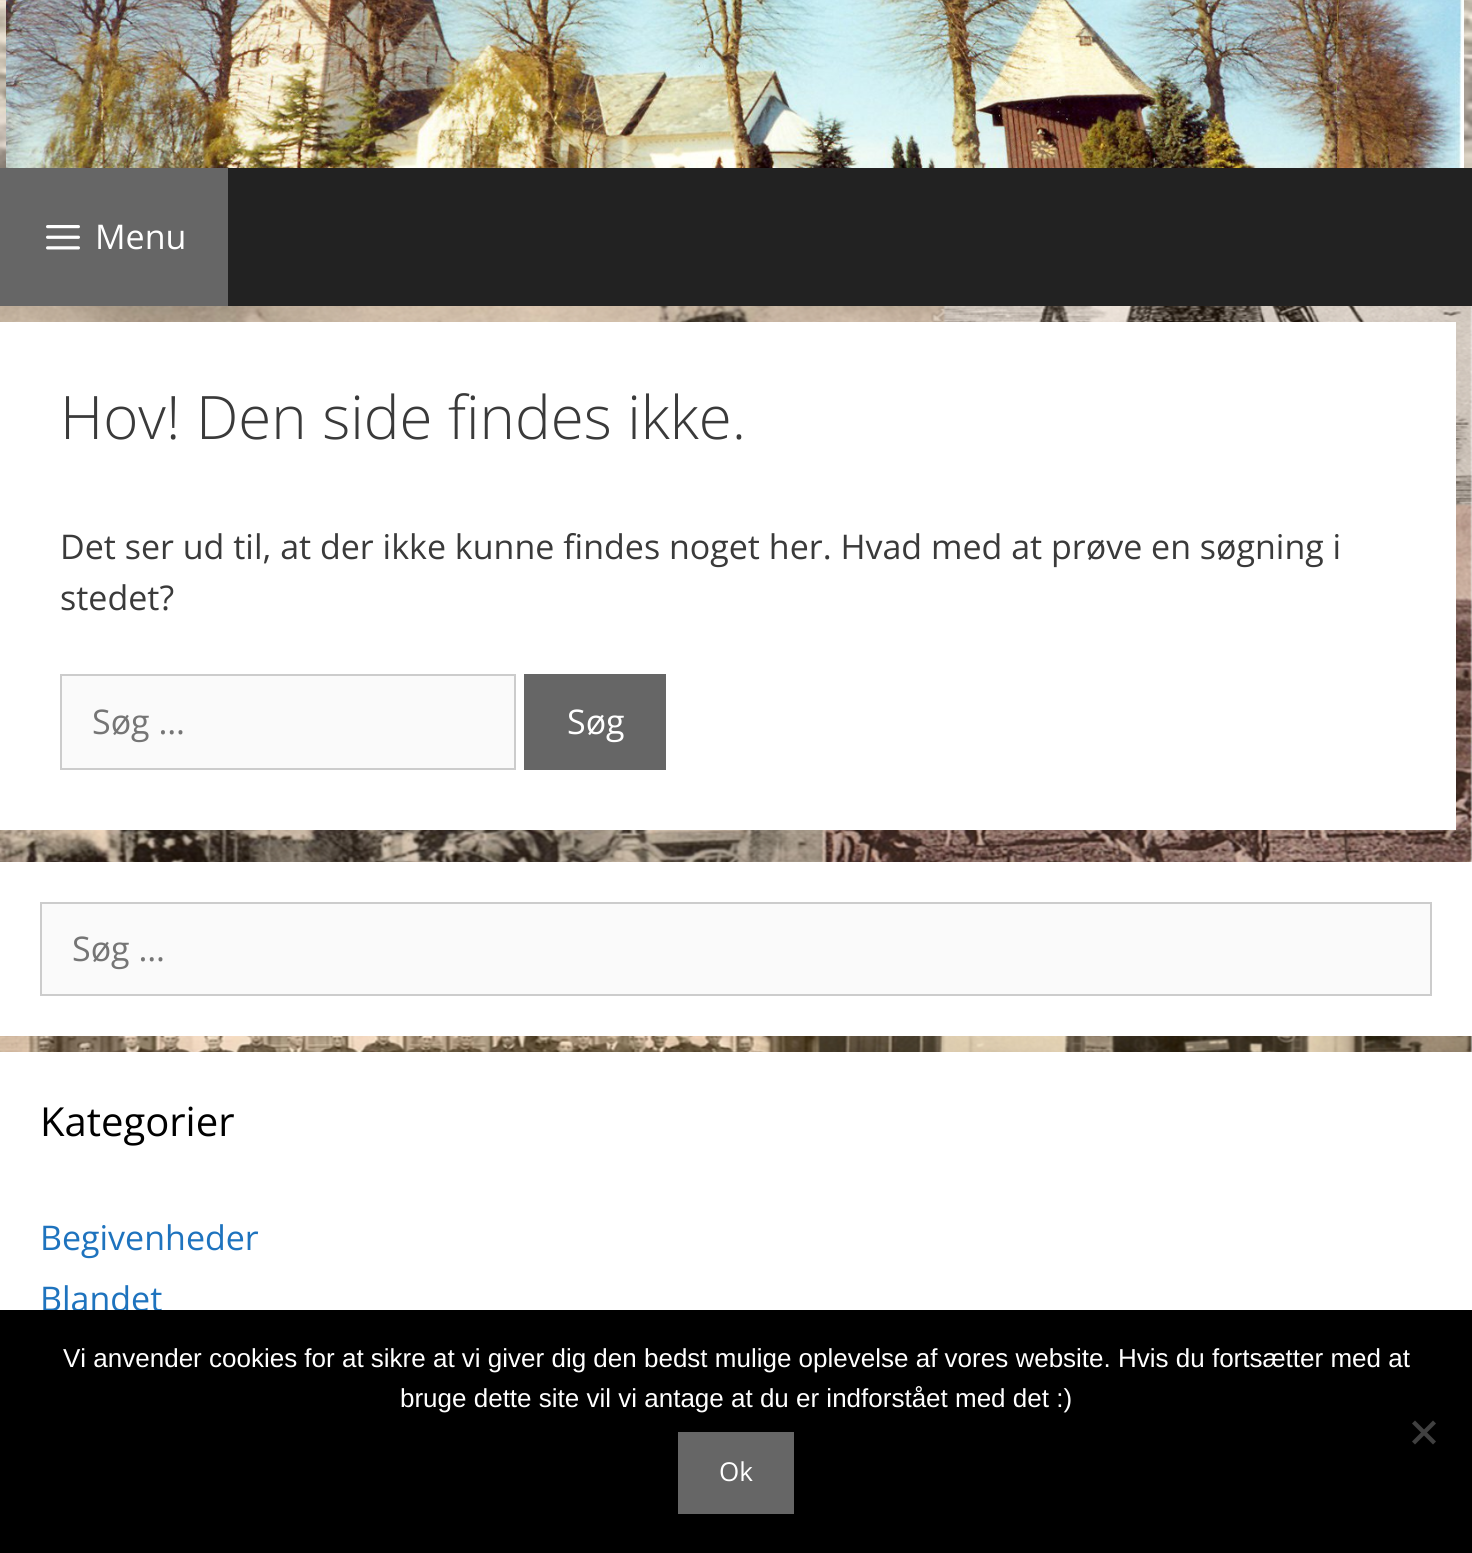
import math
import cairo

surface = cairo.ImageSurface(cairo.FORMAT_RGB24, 1472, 1553)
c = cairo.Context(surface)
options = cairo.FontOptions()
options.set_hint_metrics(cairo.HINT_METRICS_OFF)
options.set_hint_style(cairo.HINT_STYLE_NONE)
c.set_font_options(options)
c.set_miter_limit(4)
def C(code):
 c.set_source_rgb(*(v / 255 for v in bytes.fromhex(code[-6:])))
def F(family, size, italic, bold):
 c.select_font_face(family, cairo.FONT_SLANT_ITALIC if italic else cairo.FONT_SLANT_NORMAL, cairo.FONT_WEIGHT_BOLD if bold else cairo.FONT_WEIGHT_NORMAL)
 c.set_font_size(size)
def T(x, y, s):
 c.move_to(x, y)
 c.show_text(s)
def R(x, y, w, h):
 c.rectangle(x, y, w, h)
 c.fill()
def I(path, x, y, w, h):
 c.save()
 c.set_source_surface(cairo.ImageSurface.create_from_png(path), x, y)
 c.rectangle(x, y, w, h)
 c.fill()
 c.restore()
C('efefef')
c.paint()
I('1.png',0,306,1472,746)
I('2.png',0,0,1472,168)
I('3.png',6,0,1458,168)
C('222222')
R(228,168,1244,138)
C('666666')
R(0,168,228,138)
I('4.png',46,225,34,25)
F('Open Sans',34,0,0)
C('ffffff')
T(95,249,'Menu')
R(0,322,1456,508)
F('Open Sans Light',60,0,0)
C('3a3a3a')
T(60,439,'Hov! Den side findes ikke.')
F('Open Sans',34,0,0)
T(60,559,'Det ser ud til, at der ikke kunne findes noget her. Hvad med at prøve en søgning i')
T(60,610,'stedet?')
C('fafafa')
c.rectangle(61,675,454,94)
c.fill_preserve()
C('cccccc')
c.stroke()
C('757575')
T(92,734,'Søg …')
C('666666')
R(524,674,142,96)
C('ffffff')
T(567,734,'Søg')
R(0,862,1472,174)
C('fafafa')
c.rectangle(41,903,1390,92)
c.fill_preserve()
C('cccccc')
c.stroke()
C('757575')
T(72,961,'Søg …')
C('ffffff')
R(0,1052,1472,258)
F('Open Sans',40,0,0)
C('000000')
T(40,1136,'Kategorier')
F('Open Sans',34,0,0)
C('1e73be')
T(40,1250,'Begivenheder')
T(40,1311,'Blandet')
C('000000')
R(0,1310,1472,243)
F('Liberation Sans',26,0,0)
C('ffffff')
T(63,1367,'Vi anvender cookies for at sikre at vi giver dig den bedst mulige oplevelse af vores website. Hvis du fortsætter med at')
T(400,1407,'bruge dette site vil vi antage at du er indforstået med det :)')
C('404040')
c.new_path()
c.move_to(1433,1420.5)
c.line_to(1436,1423.5)
c.line_to(1415,1444.5)
c.line_to(1412,1441.5)
c.close_path()
c.fill()
c.new_path()
c.move_to(1412,1423.5)
c.line_to(1415,1420.5)
c.line_to(1436,1441.5)
c.line_to(1433,1444.5)
c.close_path()
c.fill()
C('666666')
R(678,1432,116,82)
F('Open Sans',26,0,0)
C('ffffff')
T(719,1481,'Ok')
surface.write_to_png('o.png')
